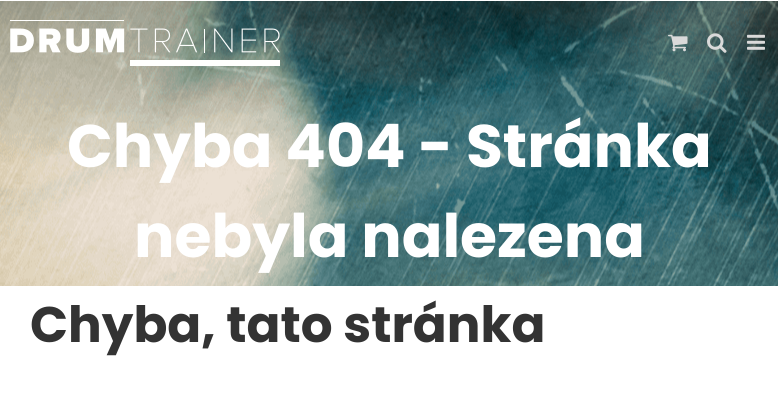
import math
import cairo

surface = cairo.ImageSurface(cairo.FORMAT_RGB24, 778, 404)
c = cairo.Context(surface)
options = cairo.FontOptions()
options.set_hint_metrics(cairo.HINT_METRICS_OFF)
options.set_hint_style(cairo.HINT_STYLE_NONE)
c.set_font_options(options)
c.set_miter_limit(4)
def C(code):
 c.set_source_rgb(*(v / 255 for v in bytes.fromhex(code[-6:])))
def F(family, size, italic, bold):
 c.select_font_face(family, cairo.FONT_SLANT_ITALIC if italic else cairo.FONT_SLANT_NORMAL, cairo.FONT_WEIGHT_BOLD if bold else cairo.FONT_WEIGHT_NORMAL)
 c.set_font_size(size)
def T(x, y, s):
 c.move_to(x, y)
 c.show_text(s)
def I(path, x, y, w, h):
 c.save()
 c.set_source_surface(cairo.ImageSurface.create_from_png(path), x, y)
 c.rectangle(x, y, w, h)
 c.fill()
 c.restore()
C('ffffff')
c.paint()
I('5.png',0,1,778,285)
I('1.png',10,20,270,46)
I('2.png',668,34,20,18)
I('3.png',707,33,20,20)
I('4.png',747,34,18,16)
F('Poppins',60,0,1)
C('ffffff')
T(67,167,'Chyba 404 - Stránka')
T(134,257,'nebyla nalezena')
F('Poppins',50,0,1)
C('333333')
T(30,342,'Chyba, tato stránka')
surface.write_to_png('o.png')
